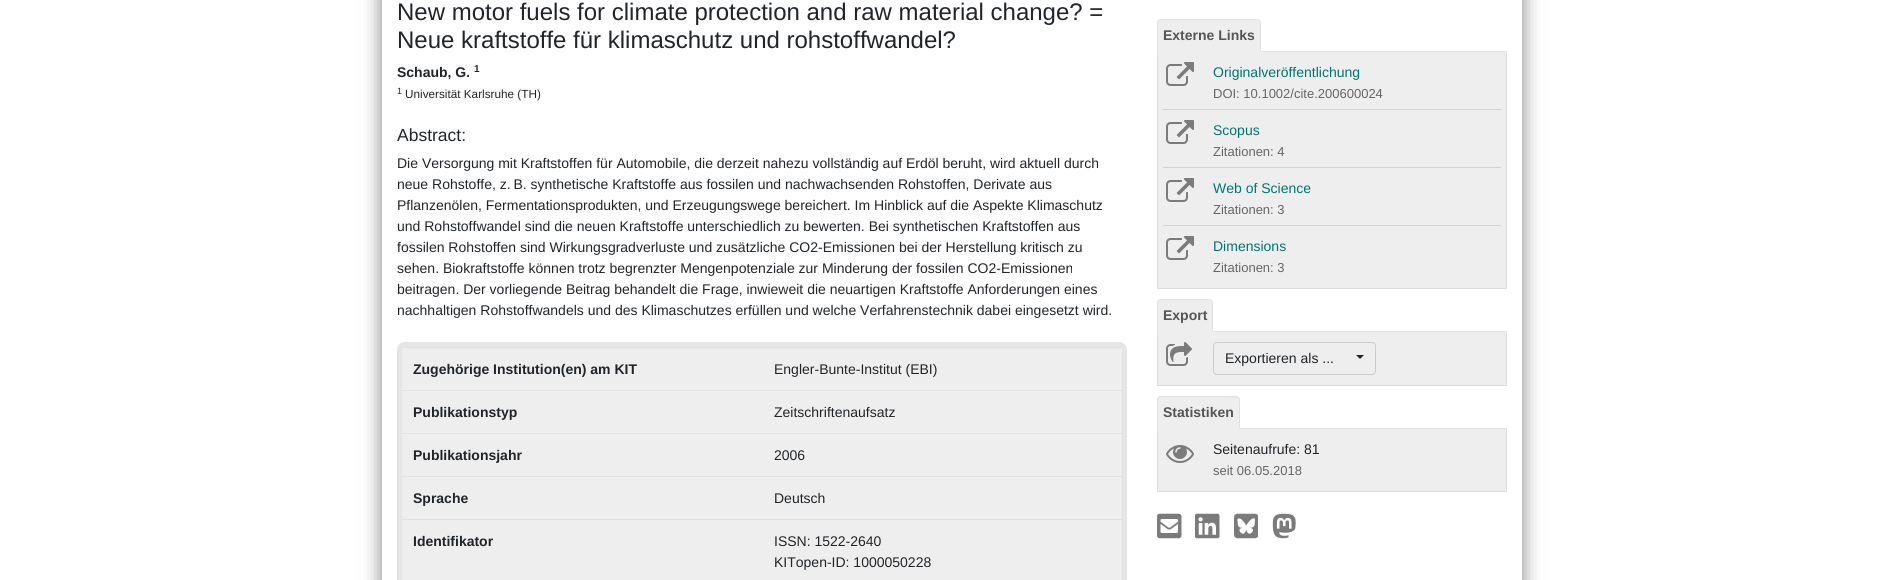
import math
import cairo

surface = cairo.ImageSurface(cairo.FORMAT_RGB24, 1904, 580)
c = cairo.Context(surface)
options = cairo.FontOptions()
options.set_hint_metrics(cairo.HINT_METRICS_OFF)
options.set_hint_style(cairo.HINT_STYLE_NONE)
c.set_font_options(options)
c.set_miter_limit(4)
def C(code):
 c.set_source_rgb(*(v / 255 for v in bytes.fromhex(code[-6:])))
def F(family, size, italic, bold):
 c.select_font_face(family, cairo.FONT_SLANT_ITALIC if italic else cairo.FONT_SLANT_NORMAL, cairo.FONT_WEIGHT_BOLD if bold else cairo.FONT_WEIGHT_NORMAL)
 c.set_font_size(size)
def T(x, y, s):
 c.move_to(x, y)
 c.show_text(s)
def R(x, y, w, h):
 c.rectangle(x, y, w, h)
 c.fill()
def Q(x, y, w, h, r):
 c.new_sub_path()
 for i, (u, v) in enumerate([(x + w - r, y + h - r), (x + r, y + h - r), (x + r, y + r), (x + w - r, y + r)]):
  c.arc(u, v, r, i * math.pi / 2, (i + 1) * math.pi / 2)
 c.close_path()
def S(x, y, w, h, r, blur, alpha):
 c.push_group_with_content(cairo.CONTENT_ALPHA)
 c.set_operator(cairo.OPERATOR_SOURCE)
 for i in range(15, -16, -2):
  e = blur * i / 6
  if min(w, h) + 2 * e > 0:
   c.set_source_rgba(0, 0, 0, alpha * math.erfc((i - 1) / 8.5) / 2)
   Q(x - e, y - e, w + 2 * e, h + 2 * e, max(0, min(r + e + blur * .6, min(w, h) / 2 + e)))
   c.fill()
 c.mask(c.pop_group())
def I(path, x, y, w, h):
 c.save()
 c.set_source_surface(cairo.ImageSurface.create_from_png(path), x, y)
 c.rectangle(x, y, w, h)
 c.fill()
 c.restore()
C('ffffff')
c.paint()
c.save()
c.set_fill_rule(cairo.FILL_RULE_EVEN_ODD)
c.new_path()
c.move_to(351,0)
c.line_to(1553,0)
c.line_to(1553,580)
c.line_to(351,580)
c.close_path()
c.move_to(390,-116)
c.line_to(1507,-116)
c.curve_to(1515.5,-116,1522,-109.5,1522,-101)
c.line_to(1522,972)
c.curve_to(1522,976.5,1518.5,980,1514,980)
c.line_to(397,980)
c.curve_to(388.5,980,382,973.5,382,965)
c.line_to(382,-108)
c.curve_to(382,-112.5,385.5,-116,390,-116)
c.close_path()
c.clip()
C('808080')
S(382,-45,1140,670,15,10,1)
c.restore()
F('Liberation Sans',24,0,0)
C('212529')
T(397,20,'New motor fuels for climate protection and raw material change? =')
T(397,48,'Neue kraftstoffe für klimaschutz und rohstoffwandel?')
F('Liberation Sans',14,0,1)
T(397,77,'Schaub, G.')
F('Liberation Sans',10,0,1)
T(474,72,'1')
F('Liberation Sans',9,0,0)
T(397,94,'1')
F('Liberation Sans',11.75,0,0)
T(405,98,'Universität Karlsruhe (TH)')
F('Liberation Sans',17.5,0,0)
T(397,141,'Abstract:')
F('Liberation Sans',14,0,0)
T(397,168,'Die Versorgung mit Kraftstoffen für Automobile, die derzeit nahezu vollständig auf Erdöl beruht, wird aktuell durch')
T(397,189,'neue Rohstoffe, z. B. synthetische Kraftstoffe aus fossilen und nachwachsenden Rohstoffen, Derivate aus')
T(397,210,'Pflanzenölen, Fermentationsprodukten, und Erzeugungswege bereichert. Im Hinblick auf die Aspekte Klimaschutz')
T(397,231,'und Rohstoffwandel sind die neuen Kraftstoffe unterschiedlich zu bewerten. Bei synthetischen Kraftstoffen aus')
T(397,252,'fossilen Rohstoffen sind Wirkungsgradverluste und zusätzliche CO2-Emissionen bei der Herstellung kritisch zu')
T(397,273,'sehen. Biokraftstoffe können trotz begrenzter Mengenpotenziale zur Minderung der fossilen CO2-Emissionen')
T(397,294,'beitragen. Der vorliegende Beitrag behandelt die Frage, inwieweit die neuartigen Kraftstoffe Anforderungen eines')
T(397,315,'nachhaltigen Rohstoffwandels und des Klimaschutzes erfüllen und welche Verfahrenstechnik dabei eingesetzt wird.')
C('eeeeee')
Q(399.5,344.5,725,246,5.5)
c.fill_preserve()
C('e5e5e5')
c.set_line_width(5)
c.stroke()
F('Liberation Sans',14,0,1)
C('212529')
T(413,374,'Zugehörige Institution(en) am KIT')
C('dee2e6')
R(402,347,721,1)
F('Liberation Sans',14,0,0)
C('212529')
T(774,374,'Engler-Bunte-Institut (EBI)')
F('Liberation Sans',14,0,1)
T(413,417,'Publikationstyp')
C('dee2e6')
R(402,390,721,1)
F('Liberation Sans',14,0,0)
C('212529')
T(774,417,'Zeitschriftenaufsatz')
F('Liberation Sans',14,0,1)
T(413,460,'Publikationsjahr')
C('dee2e6')
R(402,433,721,1)
F('Liberation Sans',14,0,0)
C('212529')
T(774,460,'2006')
F('Liberation Sans',14,0,1)
T(413,503,'Sprache')
C('dee2e6')
R(402,476,721,1)
F('Liberation Sans',14,0,0)
C('212529')
T(774,503,'Deutsch')
F('Liberation Sans',14,0,1)
T(413,546,'Identifikator')
C('dee2e6')
R(402,519,721,1)
F('Liberation Sans',14,0,0)
C('212529')
T(774,546,'ISSN: 1522-2640')
T(774,567,'KITopen-ID: 1000050228')
C('dee2e6')
R(1261,51,246,1)
C('eeeeee')
c.new_path()
c.move_to(1161,19)
c.line_to(1257,19)
c.curve_to(1259,19,1261,21,1261,23)
c.line_to(1261,52)
c.line_to(1157,52)
c.line_to(1157,23)
c.curve_to(1157,21,1159,19,1161,19)
c.close_path()
c.fill()
C('dee2e6')
c.new_path()
c.move_to(1160,19)
c.line_to(1158,20)
c.line_to(1159,21)
c.line_to(1160,20)
c.line_to(1258,20)
c.line_to(1259,21)
c.line_to(1260,20)
c.line_to(1258,19)
c.close_path()
c.fill()
c.new_path()
c.move_to(1261,52)
c.line_to(1261,22)
c.line_to(1260,20)
c.line_to(1259.5,20.5)
c.line_to(1260,22)
c.line_to(1260,51)
c.close_path()
c.fill()
C('eeeeee')
c.new_path()
c.move_to(1261,52)
c.line_to(1260,51)
c.line_to(1158,51)
c.line_to(1157,52)
c.close_path()
c.fill()
C('dee2e6')
c.new_path()
c.move_to(1157,52)
c.line_to(1158,51)
c.line_to(1158,22)
c.line_to(1158.5,20.5)
c.line_to(1158,20)
c.line_to(1157,22)
c.close_path()
c.fill()
F('Liberation Sans',14,0,1)
C('555555')
T(1163,40,'Externe Links')
C('eeeeee')
R(1158,52,348,236)
C('dddddd')
R(1506,52,1,237)
R(1157,288,350,1)
R(1157,52,1,237)
C('d3d3d3')
R(1163,109,338,1)
I('1.png',1166,62,28,24)
F('Liberation Sans',14,0,0)
C('007570')
T(1213,77,'Originalveröffentlichung')
F('Liberation Sans',13,0,0)
C('666666')
T(1213,98,'DOI: 10.1002/cite.200600024')
C('d3d3d3')
R(1163,167,338,1)
I('1.png',1166,120,28,24)
F('Liberation Sans',14,0,0)
C('007570')
T(1213,135,'Scopus')
F('Liberation Sans',13,0,0)
C('666666')
T(1213,156,'Zitationen: 4')
C('d3d3d3')
R(1163,225,338,1)
I('1.png',1166,178,28,24)
F('Liberation Sans',14,0,0)
C('007570')
T(1213,193,'Web of Science')
F('Liberation Sans',13,0,0)
C('666666')
T(1213,214,'Zitationen: 3')
I('1.png',1166,236,28,24)
F('Liberation Sans',14,0,0)
C('007570')
T(1213,251,'Dimensions')
F('Liberation Sans',13,0,0)
C('666666')
T(1213,272,'Zitationen: 3')
C('dee2e6')
R(1213,331,294,1)
C('eeeeee')
c.new_path()
c.move_to(1161,299)
c.line_to(1209,299)
c.curve_to(1211,299,1213,301,1213,303)
c.line_to(1213,332)
c.line_to(1157,332)
c.line_to(1157,303)
c.curve_to(1157,301,1159,299,1161,299)
c.close_path()
c.fill()
C('dee2e6')
c.new_path()
c.move_to(1160,299)
c.line_to(1158,300)
c.line_to(1159,301)
c.line_to(1160,300)
c.line_to(1210,300)
c.line_to(1211,301)
c.line_to(1212,300)
c.line_to(1210,299)
c.close_path()
c.fill()
c.new_path()
c.move_to(1213,332)
c.line_to(1213,302)
c.line_to(1212,300)
c.line_to(1211.5,300.5)
c.line_to(1212,302)
c.line_to(1212,331)
c.close_path()
c.fill()
C('eeeeee')
c.new_path()
c.move_to(1213,332)
c.line_to(1212,331)
c.line_to(1158,331)
c.line_to(1157,332)
c.close_path()
c.fill()
C('dee2e6')
c.new_path()
c.move_to(1157,332)
c.line_to(1158,331)
c.line_to(1158,302)
c.line_to(1158.5,300.5)
c.line_to(1158,300)
c.line_to(1157,302)
c.close_path()
c.fill()
F('Liberation Sans',14,0,1)
C('555555')
T(1163,320,'Export')
C('eeeeee')
R(1158,332,348,53)
C('dddddd')
R(1506,332,1,54)
R(1157,385,350,1)
R(1157,332,1,54)
I('2.png',1166,342,26,24)
Q(1213.5,342.5,162,32,3.5)
C('cccccc')
c.set_line_width(1)
c.stroke()
F('Liberation Sans',14,0,0)
C('212529')
T(1225,363,'Exportieren als ...')
c.new_path()
c.move_to(1356,355)
c.line_to(1364,355)
c.line_to(1360,359)
c.close_path()
c.fill()
C('dee2e6')
R(1240,428,267,1)
C('eeeeee')
c.new_path()
c.move_to(1161,396)
c.line_to(1236,396)
c.curve_to(1238,396,1240,398,1240,400)
c.line_to(1240,429)
c.line_to(1157,429)
c.line_to(1157,400)
c.curve_to(1157,398,1159,396,1161,396)
c.close_path()
c.fill()
C('dee2e6')
c.new_path()
c.move_to(1160,396)
c.line_to(1158,397)
c.line_to(1159,398)
c.line_to(1160,397)
c.line_to(1173,397)
c.curve_to(1180,397,1236,396,1238,398)
c.line_to(1239,397)
c.line_to(1236,396)
c.close_path()
c.fill()
c.new_path()
c.move_to(1240,429)
c.line_to(1240,400)
c.curve_to(1240,399,1239.5,398,1239,397)
c.line_to(1238,398)
c.curve_to(1239,398,1239,399,1239,400)
c.line_to(1239,428)
c.close_path()
c.fill()
C('eeeeee')
c.new_path()
c.move_to(1240,429)
c.line_to(1239,428)
c.line_to(1158,428)
c.line_to(1157,429)
c.close_path()
c.fill()
C('dee2e6')
c.new_path()
c.move_to(1157,429)
c.line_to(1158,428)
c.line_to(1158,400)
c.curve_to(1158,399,1158.5,398,1158.5,397.5)
c.line_to(1158,397)
c.curve_to(1157.5,398,1157,399,1157,400)
c.close_path()
c.fill()
F('Liberation Sans',14,0,1)
C('555555')
T(1163,417,'Statistiken')
C('eeeeee')
R(1158,429,348,62)
C('dddddd')
R(1506,429,1,63)
R(1157,491,350,1)
R(1157,429,1,63)
I('3.png',1166,445,28,18)
F('Liberation Sans',14,0,0)
C('212529')
T(1213,454,'Seitenaufrufe: 81')
F('Liberation Sans',13,0,0)
C('666666')
T(1213,475,'seit 06.05.2018')
I('4.png',1157,513,25,26)
I('5.png',1195,513,25,26)
I('6.png',1234,513,24,26)
I('7.png',1272,513,24,26)
surface.write_to_png('o.png')
